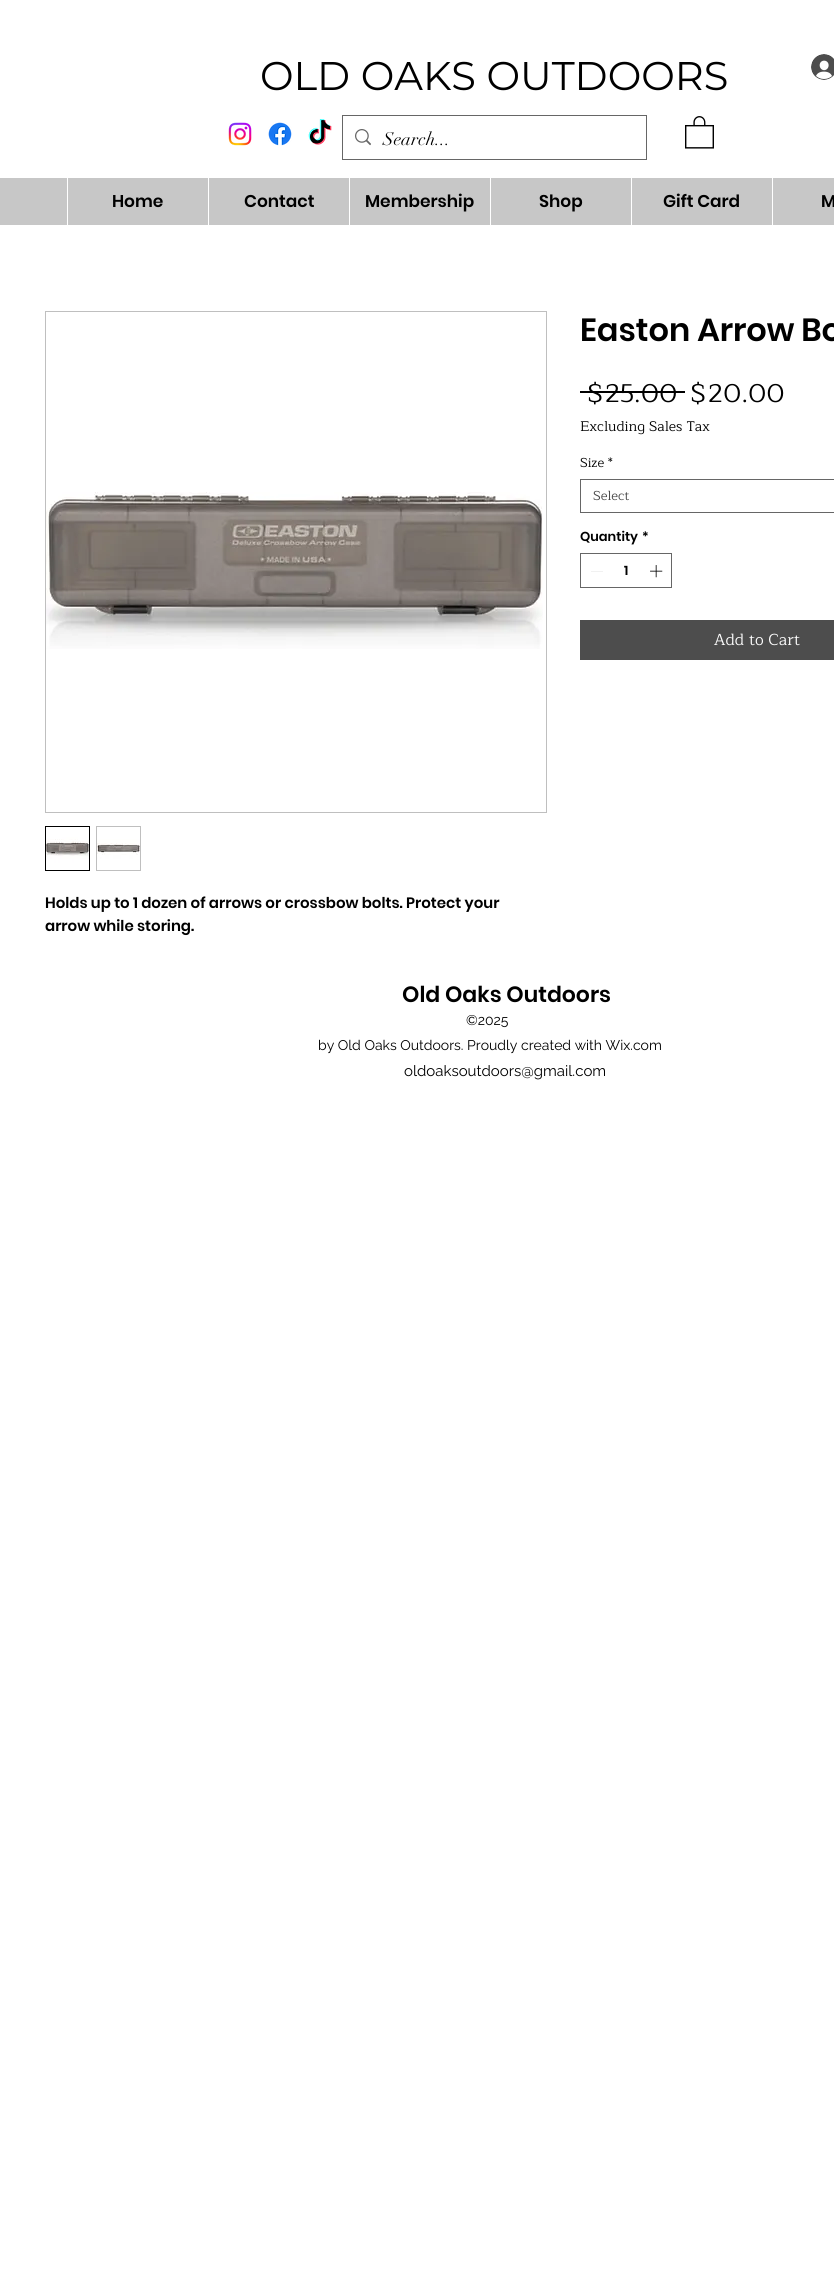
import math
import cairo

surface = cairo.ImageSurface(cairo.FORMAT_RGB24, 834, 2275)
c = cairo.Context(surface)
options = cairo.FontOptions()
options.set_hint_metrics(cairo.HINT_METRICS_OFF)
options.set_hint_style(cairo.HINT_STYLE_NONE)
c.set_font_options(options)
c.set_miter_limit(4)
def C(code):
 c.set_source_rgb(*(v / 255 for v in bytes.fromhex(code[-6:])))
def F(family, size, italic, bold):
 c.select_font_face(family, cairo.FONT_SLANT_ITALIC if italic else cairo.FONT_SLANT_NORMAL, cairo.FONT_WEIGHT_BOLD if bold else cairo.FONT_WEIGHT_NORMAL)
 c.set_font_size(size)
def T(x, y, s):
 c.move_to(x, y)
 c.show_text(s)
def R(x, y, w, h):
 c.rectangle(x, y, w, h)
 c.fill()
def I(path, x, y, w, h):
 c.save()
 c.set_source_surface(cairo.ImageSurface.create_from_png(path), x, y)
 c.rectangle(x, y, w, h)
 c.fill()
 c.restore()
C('ffffff')
c.paint()
F('Montserrat',40,0,0)
C('000000')
T(260,90,'OLD OAKS OUTDOORS')
I('1.png',811,54,23,26)
I('2.png',228,122,24,24)
I('3.png',268,122,24,24)
I('4.png',308,119,24,26)
c.rectangle(342.5,115.5,304,44)
C('666666')
c.set_line_width(1)
c.stroke()
I('5.png',355,129,16,17)
F('didot',18,0,0)
C('000000')
T(383,145,'Search...')
I('6.png',685,116,29,33)
C('c7c7c7')
R(0,178,834,47)
C('ffffff')
R(67,178,1,47)
F('Poppins SemiBold',17,0,0)
C('000000')
T(112,207,'Home')
C('ffffff')
R(208,178,1,47)
C('000000')
T(244,207,'Contact')
C('ffffff')
R(349,178,1,47)
C('000000')
T(365,207,'Membership')
C('ffffff')
R(490,178,1,47)
C('000000')
T(539,207,'Shop')
C('ffffff')
R(631,178,1,47)
C('000000')
T(663,207,'Gift Card')
C('ffffff')
R(772,178,1,47)
C('000000')
T(821,207,'M')
F('Poppins SemiBold',32,0,0)
T(580,341,'Easton Arrow Bo')
F('Maitree',26,0,0)
T(587,402,'$25.00')
R(580,391,105,2)
T(690,402,'$20.00')
F('Maitree',14,0,0)
T(580,431,'Excluding Sales Tax')
F('Maitree',13,0,0)
T(580,467,'Size *')
c.rectangle(580.5,479.5,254,33)
C('666666')
c.stroke()
C('444444')
T(593,500,'Select')
F('Poppins SemiBold',13,0,0)
C('000000')
T(580,541,'Quantity')
T(642,541,'*')
c.rectangle(580.5,553.5,91,34)
C('666666')
c.stroke()
C('e3e3e3')
c.set_fill_rule(cairo.FILL_RULE_EVEN_ODD)
c.new_path()
c.move_to(603,571)
c.line_to(603,571.5)
c.line_to(591,571.5)
c.line_to(591,571)
c.close_path()
c.fill()
C('000000')
T(624,575,'1')
I('7.png',650,565,13,13)
C('4d4d4d')
R(580,620,254,40)
F('Maitree',16,0,0)
C('ffffff')
T(714,645,'Add to Cart')
c.rectangle(45.5,311.5,501,501)
C('bfbfbf')
c.stroke()
I('8.png',46,492,497,157)
c.rectangle(45.5,826.5,44,44)
C('000000')
c.stroke()
I('9.png',46,827,43,43)
C('bfbfbf')
R(96,826,45,45)
I('10.png',97,827,43,43)
F('Poppins SemiBold',15,0,0)
C('000000')
T(45,908,'Holds up to 1 dozen of arrows or crossbow bolts. Protect your')
T(45,931,'arrow while storing.')
F('Poppins SemiBold',22,0,0)
T(402,1002,'Old Oaks Outdoors')
F('Raleway',14,0,0)
T(466,1025,'©2025')
T(318,1050,'by Old Oaks Outdoors. Proudly created with Wix.com')
F('Raleway',15,0,0)
T(404,1076,'oldoaksoutdoors@gmail.com')
surface.write_to_png('o.png')
